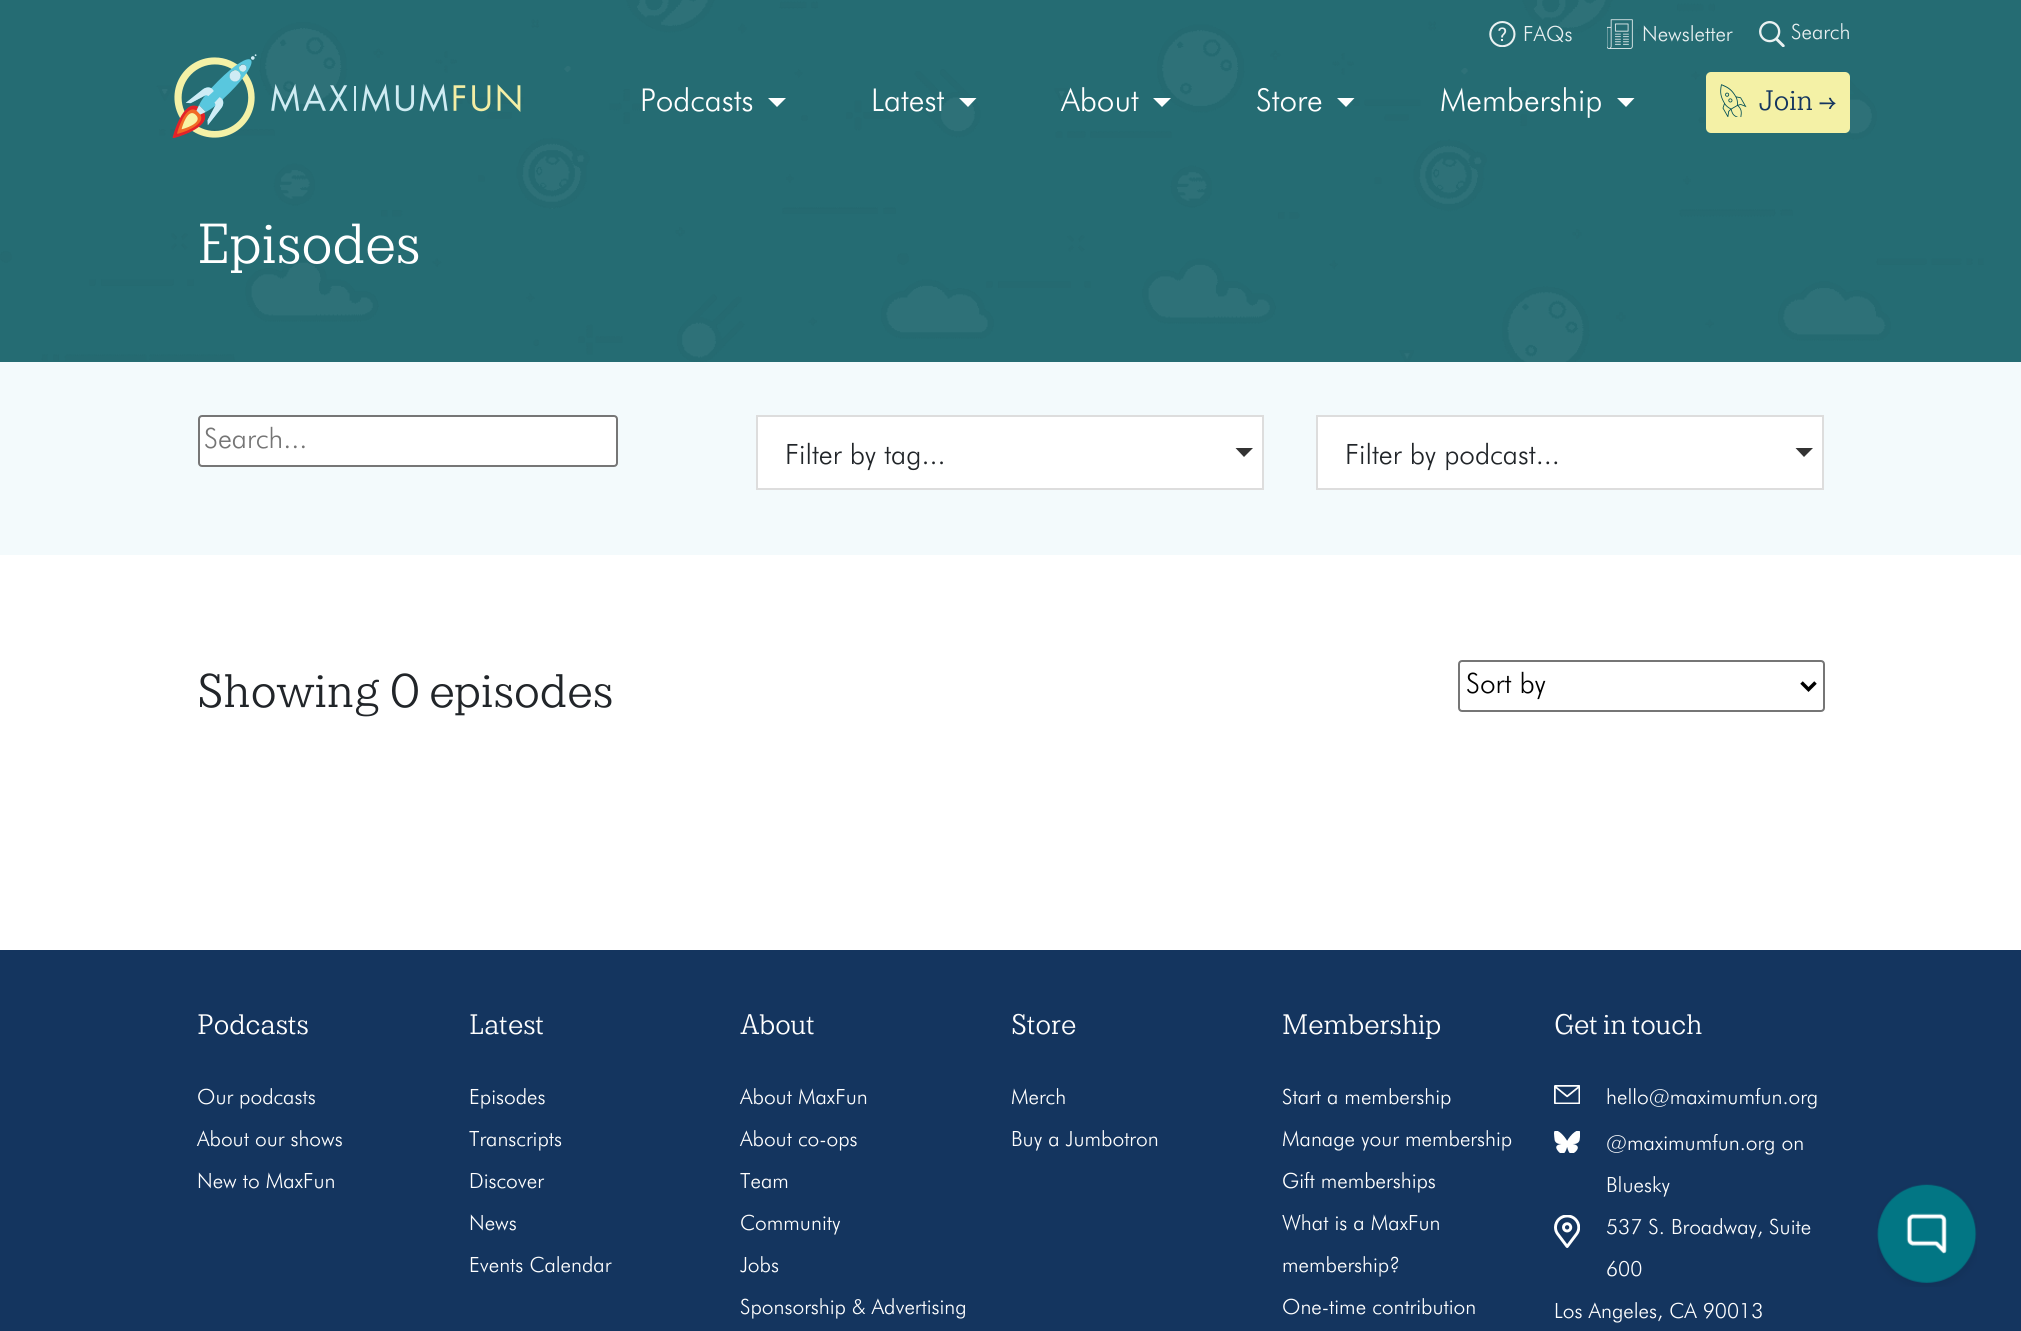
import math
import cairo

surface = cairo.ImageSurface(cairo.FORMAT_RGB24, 2021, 1331)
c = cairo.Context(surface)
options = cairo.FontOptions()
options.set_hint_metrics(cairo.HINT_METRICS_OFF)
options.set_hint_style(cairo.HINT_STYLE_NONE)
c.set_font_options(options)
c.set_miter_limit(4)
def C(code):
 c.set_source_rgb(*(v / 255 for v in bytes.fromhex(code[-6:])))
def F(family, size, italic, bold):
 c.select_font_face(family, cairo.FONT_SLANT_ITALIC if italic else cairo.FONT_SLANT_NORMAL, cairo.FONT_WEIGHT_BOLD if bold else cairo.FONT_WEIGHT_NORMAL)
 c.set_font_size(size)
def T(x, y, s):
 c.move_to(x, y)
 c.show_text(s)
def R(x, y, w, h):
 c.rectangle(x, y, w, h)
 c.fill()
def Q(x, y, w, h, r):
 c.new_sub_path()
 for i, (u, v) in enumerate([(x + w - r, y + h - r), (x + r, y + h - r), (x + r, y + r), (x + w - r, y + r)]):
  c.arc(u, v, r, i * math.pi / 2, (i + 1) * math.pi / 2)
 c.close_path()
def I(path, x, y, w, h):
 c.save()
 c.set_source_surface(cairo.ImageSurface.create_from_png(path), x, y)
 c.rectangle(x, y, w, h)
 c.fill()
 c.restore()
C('14355f')
c.paint()
I('4.png',0,0,2021,362)
I('1.png',1489,21,27,26)
F('Futura Light',21,0,0)
C('e9f0f1')
T(1523,41,'FAQs')
I('2.png',1607,19,26,30)
T(1642,41,'Newsletter')
I('3.png',1759,21,26,26)
T(1791,39,'Search')
I('5.png',172,54,349,84)
F('Futura Light',31.5,0,0)
C('ffffff')
T(640,111,'Podcasts')
c.new_path()
c.move_to(768,98)
c.line_to(786,98)
c.line_to(777,107)
c.close_path()
c.fill()
T(871,111,'Latest')
c.new_path()
c.move_to(959,98)
c.line_to(976.5,98)
c.line_to(968,107)
c.close_path()
c.fill()
T(1061,111,'About')
c.new_path()
c.move_to(1153,98)
c.line_to(1171,98)
c.line_to(1162,107)
c.close_path()
c.fill()
T(1256,111,'Store')
c.new_path()
c.move_to(1337,98)
c.line_to(1354.5,98)
c.line_to(1346,107)
c.close_path()
c.fill()
T(1440,111,'Membership')
c.new_path()
c.move_to(1617,98)
c.line_to(1634.5,98)
c.line_to(1626,107)
c.close_path()
c.fill()
C('f4f1a6')
Q(1706,72,144,61,5)
c.fill()
I('6.png',1720,84,27,33)
F('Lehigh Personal',31.5,0,0)
C('14355f')
T(1759,110,'Join →')
F('Lehigh Personal',63,0,0)
C('ffffff')
T(197,263,'Episodes')
C('f3fafc')
R(0,362,2021,193)
C('ffffff')
Q(199,416,418,50,3)
c.fill_preserve()
C('767676')
c.stroke()
F('Futura Light',28,0,0)
C('757575')
T(204,448,'Search...')
C('ffffff')
c.rectangle(757,416,506,73)
c.fill_preserve()
C('dddddd')
c.stroke()
C('212529')
T(785,464,'Filter by tag...')
C('333333')
c.new_path()
c.move_to(1235.5,448)
c.line_to(1253,448)
c.line_to(1244,457)
c.close_path()
c.fill()
C('ffffff')
c.rectangle(1317,416,506,73)
c.fill_preserve()
C('dddddd')
c.stroke()
C('212529')
T(1345,464,'Filter by podcast...')
C('333333')
c.new_path()
c.move_to(1795.5,448)
c.line_to(1813,448)
c.line_to(1804,457)
c.close_path()
c.fill()
C('ffffff')
R(0,555,2021,395)
F('Lehigh Personal',52.5,0,0)
C('212529')
T(197,707,'Showing 0 episodes')
Q(1459,661,365,50,3)
C('767676')
c.stroke()
c.new_path()
c.move_to(1801.5,682.5)
c.line_to(1808.5,689.5)
c.line_to(1815.5,682.5)
C('000000')
c.set_line_width(3.5)
c.stroke()
F('Futura Light',28,0,0)
T(1466,693,'Sort by')
F('Lehigh Personal',31.5,0,0)
C('ffffff')
T(197,1034,'Podcasts')
F('Futura Light',21,0,0)
T(197,1104,'Our podcasts')
T(197,1146,'About our shows')
T(197,1188,'New to MaxFun')
F('Lehigh Personal',31.5,0,0)
T(469,1034,'Latest')
F('Futura Light',21,0,0)
T(469,1104,'Episodes')
T(469,1146,'Transcripts')
T(469,1188,'Discover')
T(469,1230,'News')
T(469,1272,'Events Calendar')
F('Lehigh Personal',31.5,0,0)
T(740,1034,'About')
F('Futura Light',21,0,0)
T(740,1104,'About MaxFun')
T(740,1146,'About co-ops')
T(740,1188,'Team')
T(740,1230,'Community')
T(740,1272,'Jobs')
T(740,1314,'Sponsorship & Advertising')
F('Lehigh Personal',31.5,0,0)
T(1011,1034,'Store')
F('Futura Light',21,0,0)
T(1011,1104,'Merch')
T(1011,1146,'Buy a Jumbotron')
F('Lehigh Personal',31.5,0,0)
T(1282,1034,'Membership')
F('Futura Light',21,0,0)
T(1282,1104,'Start a membership')
T(1282,1146,'Manage your membership')
T(1282,1188,'Gift memberships')
T(1282,1230,'What is a MaxFun')
T(1282,1272,'membership?')
T(1282,1314,'One-time contribution')
F('Lehigh Personal',31.5,0,0)
T(1554,1034,'Get in touch')
I('7.png',1554,1085,26,19)
F('Futura Light',21,0,0)
T(1606,1104,'hello@maximumfun.org')
I('8.png',1554,1131,26,22)
T(1606,1150,'@maximumfun.org on')
T(1606,1192,'Bluesky')
I('9.png',1554,1215,26,33)
T(1606,1234,'537 S. Broadway, Suite')
T(1606,1276,'600')
T(1554,1318,'Los Angeles, CA 90013')
I('10.png',1877,1184,100,103)
surface.write_to_png('o.png')
